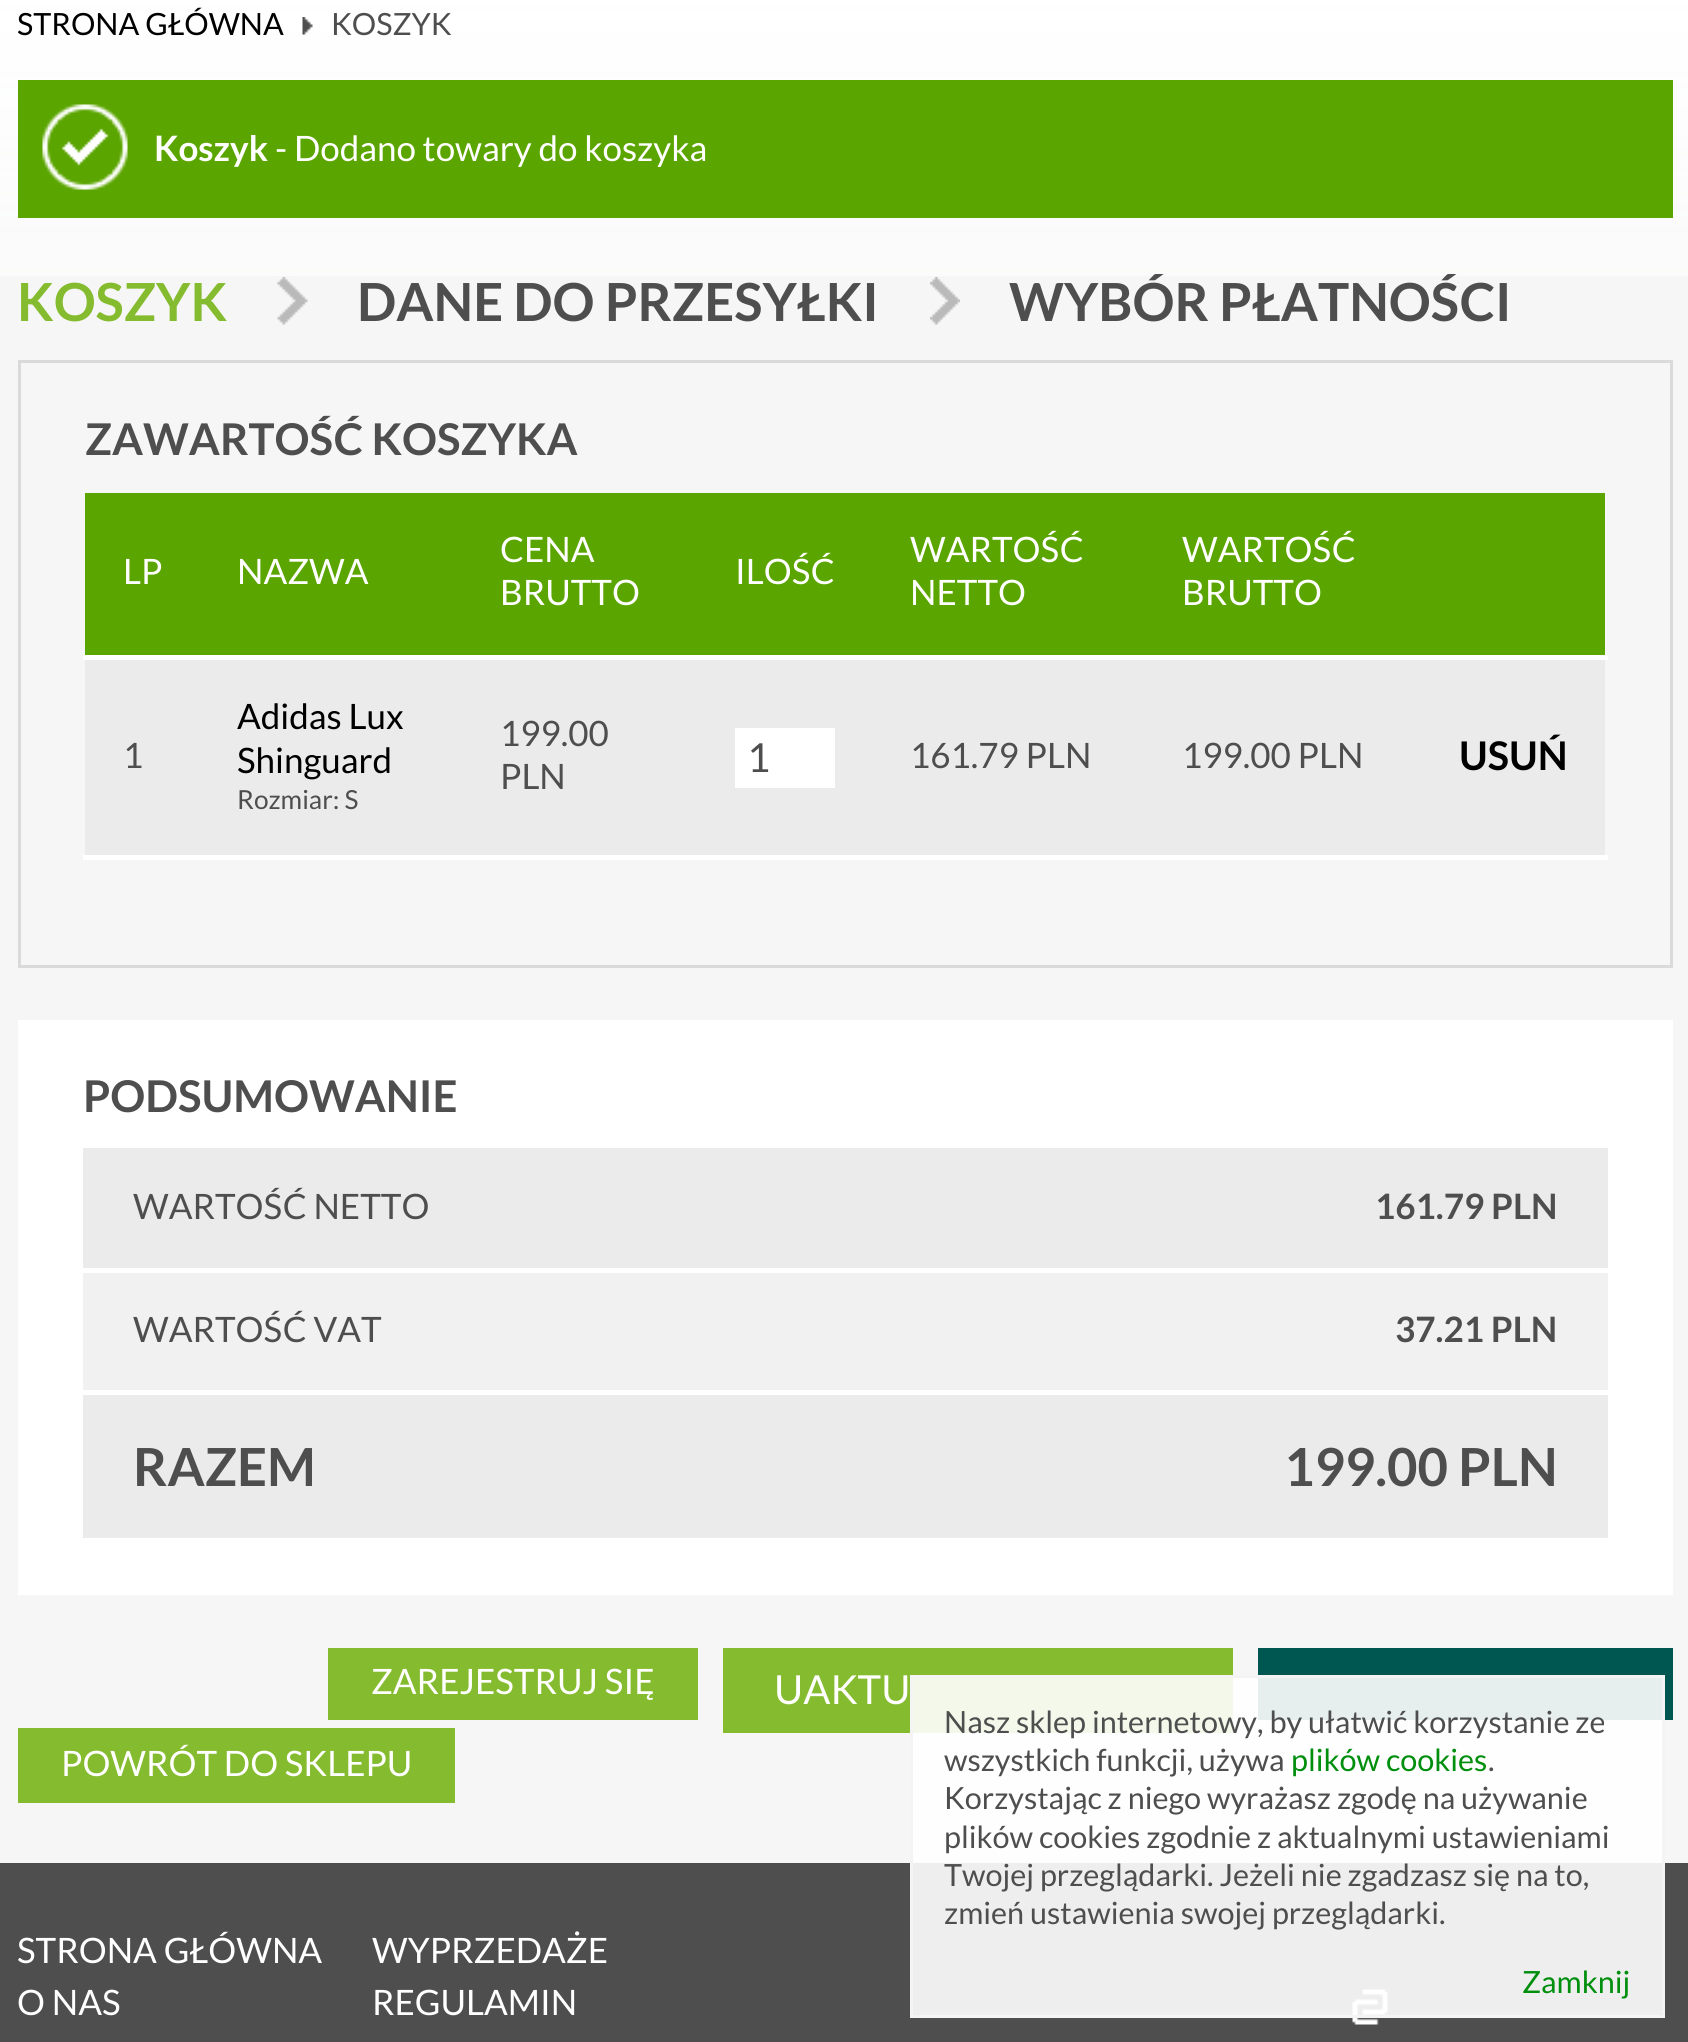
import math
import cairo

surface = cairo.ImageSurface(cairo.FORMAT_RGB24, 1688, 2042)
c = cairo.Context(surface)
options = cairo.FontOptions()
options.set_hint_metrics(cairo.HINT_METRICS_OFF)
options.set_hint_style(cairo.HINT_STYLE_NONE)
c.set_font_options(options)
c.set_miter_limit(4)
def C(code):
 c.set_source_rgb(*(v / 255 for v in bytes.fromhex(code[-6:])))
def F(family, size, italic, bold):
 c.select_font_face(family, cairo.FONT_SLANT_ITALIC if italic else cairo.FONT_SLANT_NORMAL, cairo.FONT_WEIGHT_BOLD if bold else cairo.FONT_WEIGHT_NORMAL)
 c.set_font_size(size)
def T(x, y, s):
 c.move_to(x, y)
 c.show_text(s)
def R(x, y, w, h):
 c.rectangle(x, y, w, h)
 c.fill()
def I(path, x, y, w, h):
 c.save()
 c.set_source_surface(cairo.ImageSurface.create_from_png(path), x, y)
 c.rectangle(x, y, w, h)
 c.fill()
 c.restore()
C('f6f6f6')
c.paint()
I('1.png',0,0,1688,276)
F('Lato',30.6,0,0)
C('000000')
T(17,35,'STRONA GŁÓWNA')
I('2.png',302,17,11,18)
C('4e4e4e')
T(331,35,'KOSZYK')
C('5ba500')
R(18,80,1655,138)
I('3.png',42,104,86,86)
F('Lato',35,0,1)
C('ffffff')
T(154,161,'Koszyk')
F('Lato',35,0,0)
T(275,161,'- Dodano towary do koszyka')
I('4.png',277,277,31,48)
F('Lato',52.5,0,1)
C('85bb2e')
T(17,321,'KOSZYK')
I('5.png',930,277,30,48)
C('4e4e4e')
T(357,321,'DANE DO PRZESYŁKI')
T(1009,321,'WYBÓR PŁATNOŚCI')
c.rectangle(19.5,361.5,1652,605)
C('dadada')
c.set_line_width(3)
c.stroke()
F('Lato',43.75,0,1)
C('4e4e4e')
T(85,455,'ZAWARTOŚĆ KOSZYKA')
C('5ba500')
R(85,493,1520,162)
F('Lato',35,0,0)
C('ffffff')
T(123,584,'LP')
T(237,584,'NAZWA')
T(500,562,'CENA')
T(500,605,'BRUTTO')
T(735,584,'ILOŚĆ')
T(910,562,'WARTOŚĆ')
T(910,605,'NETTO')
T(1182,562,'WARTOŚĆ')
T(1182,605,'BRUTTO')
R(83,655,1525,5)
C('ebebeb')
R(85,660,1520,195)
C('4e4e4e')
T(123,768,'1')
C('000000')
T(237,729,'Adidas Lux')
T(237,773,'Shinguard')
F('Lato',26.25,0,0)
C('4e4e4e')
T(237,809,'Rozmiar: S')
F('Lato',35,0,0)
T(500,746,'199.00')
T(500,789,'PLN')
C('ffffff')
R(735,728,100,60)
F('Lato',40,0,0)
C('4e4e4e')
T(747,772,'1')
F('Lato',35,0,0)
T(910,768,'161.79 PLN')
T(1182,768,'199.00 PLN')
C('ffffff')
R(83,855,1525,5)
F('Lato',39.5,0,1)
C('000000')
T(1459,770,'USUŃ')
C('ffffff')
R(18,1020,1655,575)
F('Lato',43.75,0,1)
C('4e4e4e')
T(83,1112,'PODSUMOWANIE')
C('ebebeb')
R(83,1148,1525,120)
F('Lato',35,0,0)
C('4e4e4e')
T(133,1219,'WARTOŚĆ NETTO')
F('Lato',35,0,1)
T(1375,1219,'161.79 PLN')
C('f1f1f1')
R(83,1273,1525,117)
F('Lato',35,0,0)
C('4e4e4e')
T(133,1342,'WARTOŚĆ VAT')
F('Lato',35,0,1)
T(1395,1342,'37.21 PLN')
C('ebebeb')
R(83,1395,1525,143)
F('Lato',52.5,0,1)
C('4e4e4e')
T(133,1486,'RAZEM')
T(1284,1486,'199.00 PLN')
C('85bb2e')
R(328,1648,370,72)
F('Lato',35,0,0)
C('ffffff')
T(371,1694,'ZAREJESTRUJ SIĘ')
C('85bb2e')
R(723,1648,510,85)
F('Lato',40,0,0)
C('ffffff')
T(774,1704,'UAKTU')
C('005650')
R(1258,1648,415,72)
C('85bb2e')
R(18,1728,437,75)
F('Lato',35,0,0)
C('ffffff')
T(61,1776,'POWRÓT DO SKLEPU')
C('4e4e4e')
R(0,1863,1688,179)
C('ffffff')
T(17,1963,'STRONA GŁÓWNA')
T(17,2015,'O NAS')
T(372,1963,'WYPRZEDAŻE')
T(372,2015,'REGULAMIN')
I('6.png',1352,1989,36,36)
c.set_source_rgba(1,1,1,0.9)
c.rectangle(911.5,1676.5,752,340)
c.fill_preserve()
C('f4f4f4')
c.stroke()
F('Lato',30.6,0,0)
C('4e4e4e')
T(944,1733,'Nasz sklep internetowy, by ułatwić korzystanie ze')
T(944,1771,'wszystkich funkcji, używa')
C('008e0d')
T(1291,1771,'plików cookies')
C('4e4e4e')
T(1488,1771,'.')
T(944,1809,'Korzystając z niego wyrażasz zgodę na używanie')
T(944,1848,'plików cookies zgodnie z aktualnymi ustawieniami')
T(944,1886,'Twojej przeglądarki. Jeżeli nie zgadzasz się na to,')
T(944,1924,'zmień ustawienia swojej przeglądarki.')
C('008e0d')
T(1522,1993,'Zamknij')
surface.write_to_png('o.png')
